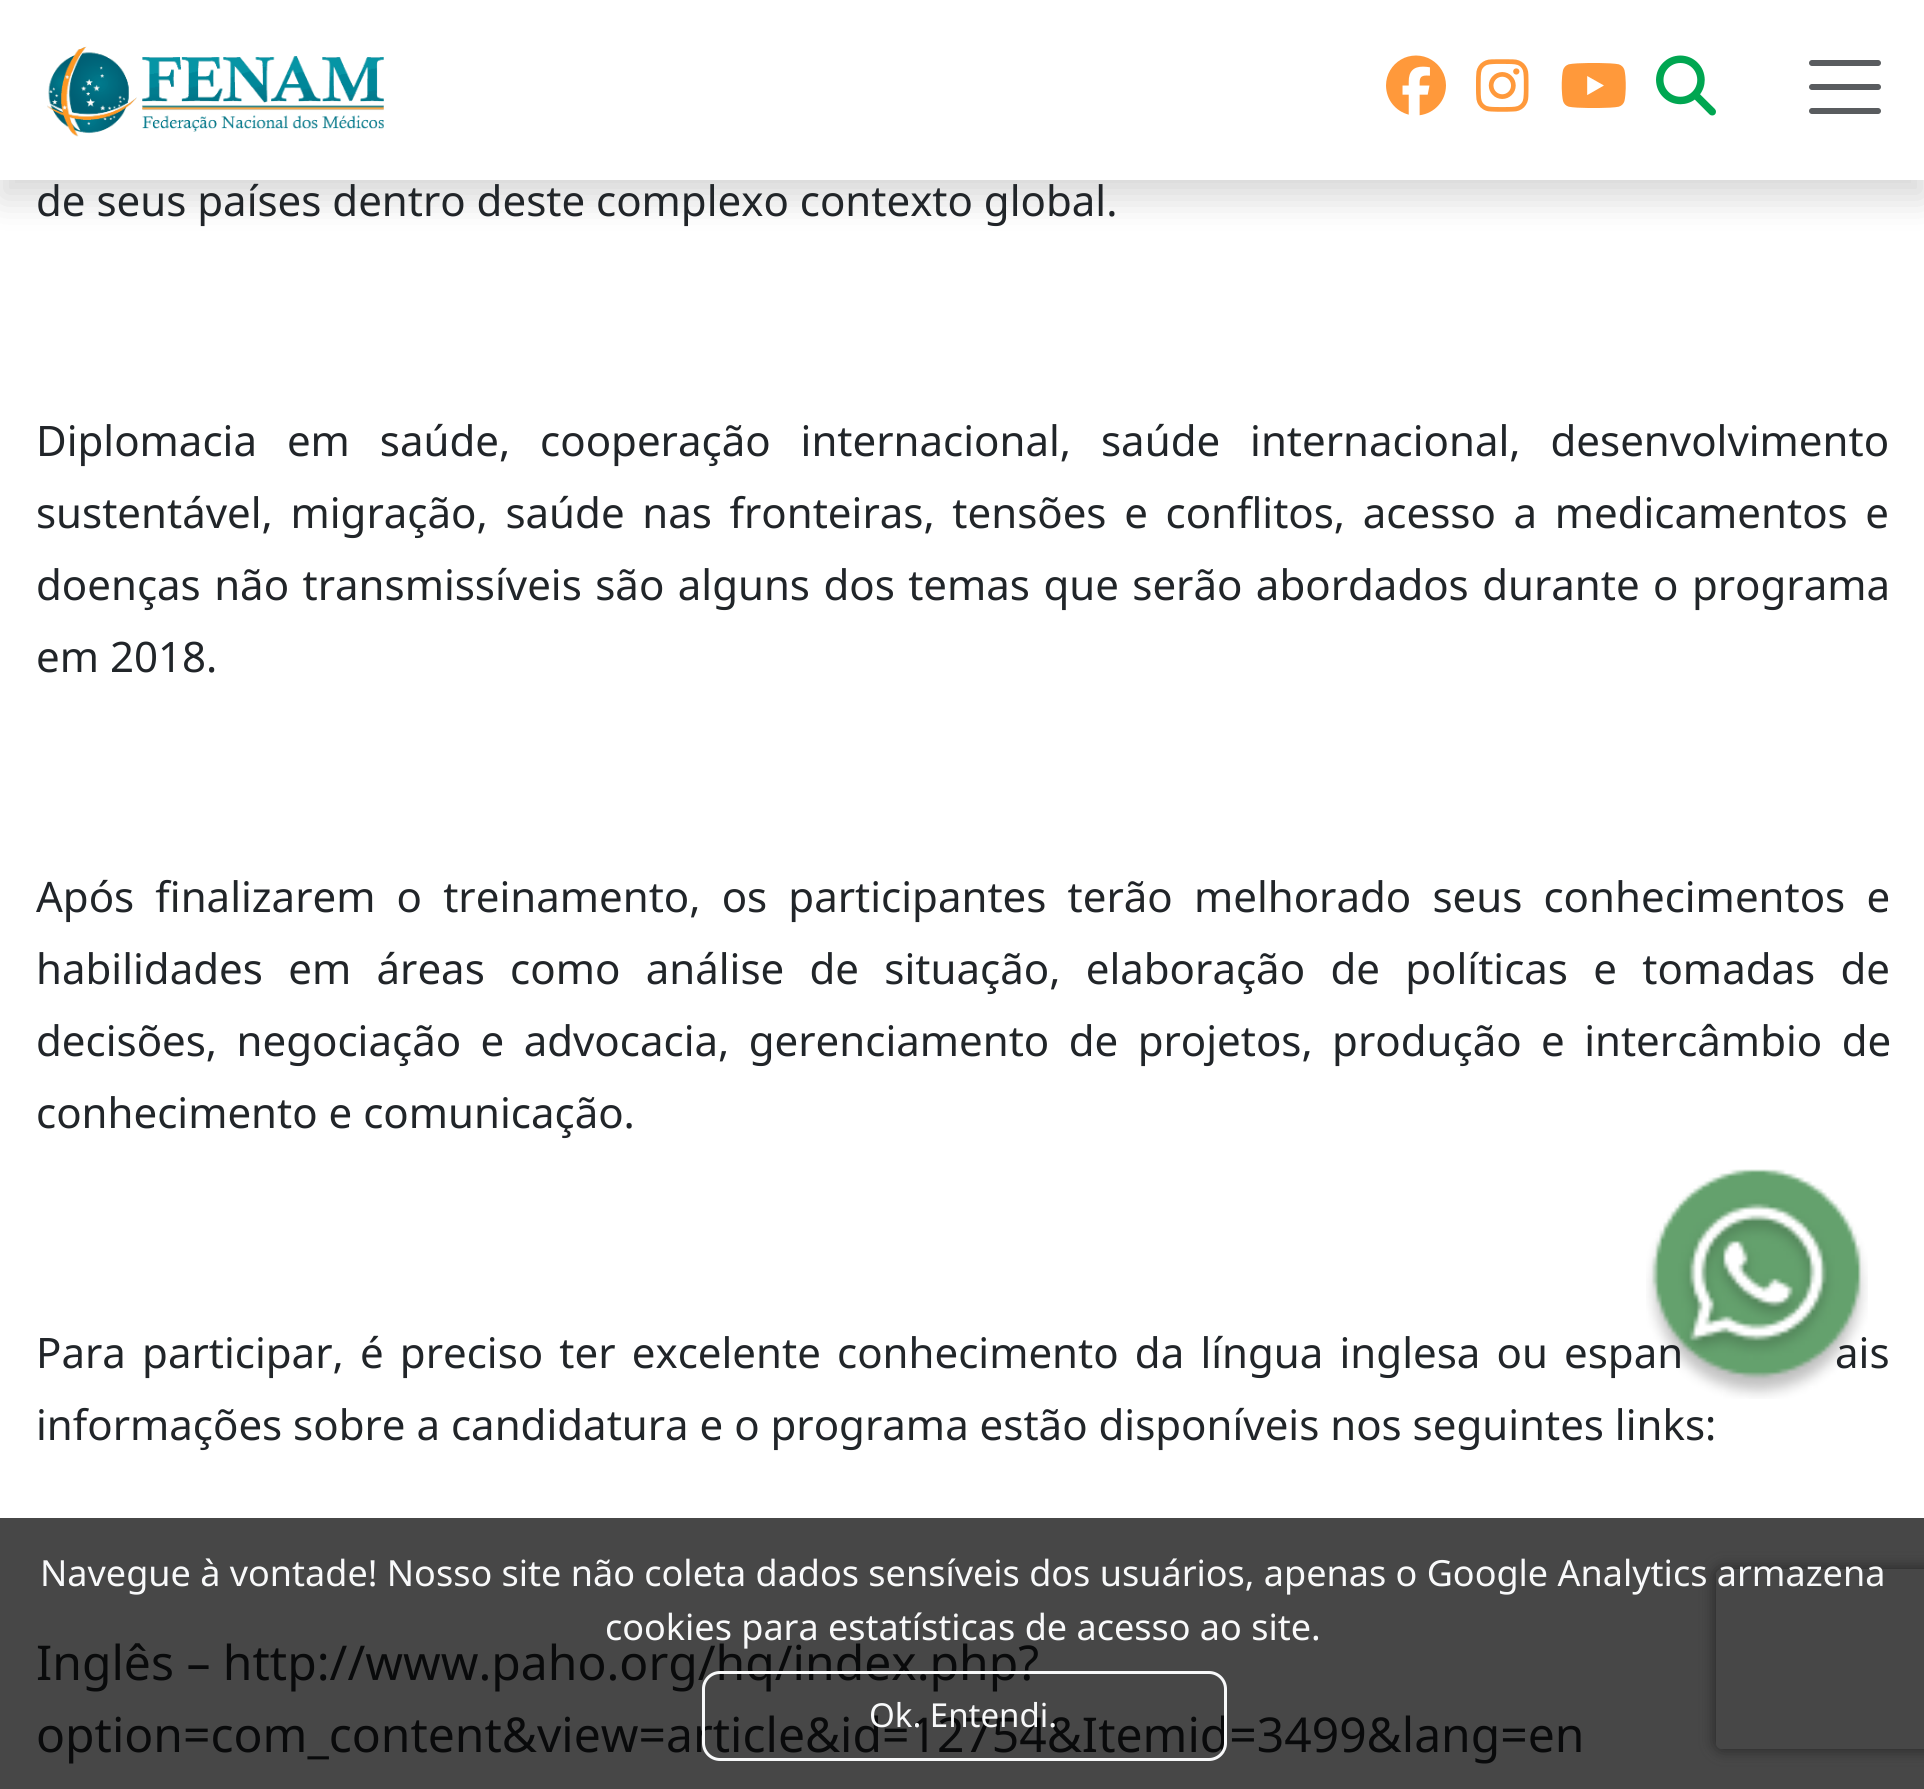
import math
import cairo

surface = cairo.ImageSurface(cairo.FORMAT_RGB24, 1924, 1789)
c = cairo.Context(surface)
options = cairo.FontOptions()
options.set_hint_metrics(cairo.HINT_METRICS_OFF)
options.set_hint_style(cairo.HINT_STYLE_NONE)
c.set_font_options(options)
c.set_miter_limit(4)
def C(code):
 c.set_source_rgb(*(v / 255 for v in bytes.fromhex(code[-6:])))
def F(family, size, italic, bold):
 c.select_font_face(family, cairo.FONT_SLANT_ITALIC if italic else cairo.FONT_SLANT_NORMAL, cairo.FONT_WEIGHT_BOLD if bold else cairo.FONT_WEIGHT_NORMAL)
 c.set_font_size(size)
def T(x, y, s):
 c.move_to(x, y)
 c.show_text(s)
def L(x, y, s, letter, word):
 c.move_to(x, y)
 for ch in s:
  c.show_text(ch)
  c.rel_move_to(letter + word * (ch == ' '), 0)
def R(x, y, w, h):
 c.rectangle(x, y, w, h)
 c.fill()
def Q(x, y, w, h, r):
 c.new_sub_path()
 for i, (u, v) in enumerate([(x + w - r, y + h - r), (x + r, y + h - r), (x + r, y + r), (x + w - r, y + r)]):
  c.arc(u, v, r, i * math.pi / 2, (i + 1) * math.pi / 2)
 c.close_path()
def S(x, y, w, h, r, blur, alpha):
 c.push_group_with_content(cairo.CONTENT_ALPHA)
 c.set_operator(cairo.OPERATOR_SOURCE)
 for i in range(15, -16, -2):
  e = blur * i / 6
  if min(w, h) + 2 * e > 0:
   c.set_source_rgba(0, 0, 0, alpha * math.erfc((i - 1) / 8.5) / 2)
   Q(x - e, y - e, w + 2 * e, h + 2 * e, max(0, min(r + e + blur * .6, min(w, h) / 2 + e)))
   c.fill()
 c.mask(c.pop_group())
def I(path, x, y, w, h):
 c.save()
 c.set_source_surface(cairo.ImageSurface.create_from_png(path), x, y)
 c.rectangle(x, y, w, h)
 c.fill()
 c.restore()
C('ffffff')
c.paint()
C('474747')
R(0,1518,1924,271)
C('000000')
S(0,18,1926,180,0,18,.16)
C('ffffff')
R(0,0,1924,180)
I('1.png',47,46,337,91)
I('2.png',1386,55,60,61)
I('3.png',1476,59,53,53)
I('4.png',1561,63,65,45)
I('5.png',1656,55,60,61)
c.new_path()
c.move_to(1812,63)
c.line_to(1878,63)
c.move_to(1812,87)
c.line_to(1878,87)
c.move_to(1812,111)
c.line_to(1878,111)
C('595c5f')
c.set_line_width(6)
c.set_line_cap(cairo.LINE_CAP_ROUND)
c.stroke()
F('Noto Sans',42,0,0)
C('212529')
T(36,216,'de seus países dentro deste complexo contexto global.')
L(36,456,'Diplomacia em saúde, cooperação internacional, saúde internacional, desenvolvimento',0,19)
L(36,528,'sustentável, migração, saúde nas fronteiras, tensões e conflitos, acesso a medicamentos e',0,6.75)
L(36,600,'doenças não transmissíveis são alguns dos temas que serão abordados durante o programa',0,2.5)
T(36,672,'em 2018.')
L(36,912,'Após finalizarem o treinamento, os participantes terão melhorado seus conhecimentos e',0,10.25)
L(36,984,'habilidades em áreas como análise de situação, elaboração de políticas e tomadas de',0,14.4)
L(36,1056,'decisões, negociação e advocacia, gerenciamento de projetos, produção e intercâmbio de',0,8.5)
T(36,1128,'conhecimento e comunicação.')
L(36,1368,'Para participar, é preciso ter excelente conhecimento da língua inglesa ou espan',0,5.25)
L(1835,1368,'ais',0,5.25)
T(36,1440,'informações sobre a candidatura e o programa estão disponíveis nos seguintes links:')
F('Noto Sans',48,0,0)
C('090a0b')
T(36,1680,'Inglês – http://www.paho.org/hq/index.php?')
T(36,1752,'option=com_content&view=article&id=12754&Itemid=3499&lang=en')
I('6.png',1646,1169,222,230)
c.save()
c.set_fill_rule(cairo.FILL_RULE_EVEN_ODD)
c.new_path()
c.move_to(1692,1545)
c.line_to(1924,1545)
c.line_to(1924,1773)
c.line_to(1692,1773)
c.close_path()
c.move_to(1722,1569)
c.line_to(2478,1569)
c.curve_to(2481.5,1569,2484,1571.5,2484,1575)
c.line_to(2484,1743)
c.curve_to(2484,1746.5,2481.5,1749,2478,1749)
c.line_to(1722,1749)
c.curve_to(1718.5,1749,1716,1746.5,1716,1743)
c.line_to(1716,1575)
c.curve_to(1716,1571.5,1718.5,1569,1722,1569)
c.close_path()
c.clip()
C('242424')
S(1716,1569,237,180,6,7.5,1)
c.restore()
F('Noto Sans',36,0,0)
C('f8f9fa')
T(40,1586,'Navegue à vontade! Nosso site não coleta dados sensíveis dos usuários, apenas o Google Analytics armazena')
T(605,1640,'cookies para estatísticas de acesso ao site.')
Q(703.5,1672.5,522,87,16.5)
c.set_line_width(3)
c.set_line_cap(cairo.LINE_CAP_BUTT)
c.stroke()
F('Noto Sans',33,0,0)
T(869,1727,'Ok. Entendi.')
surface.write_to_png('o.png')
